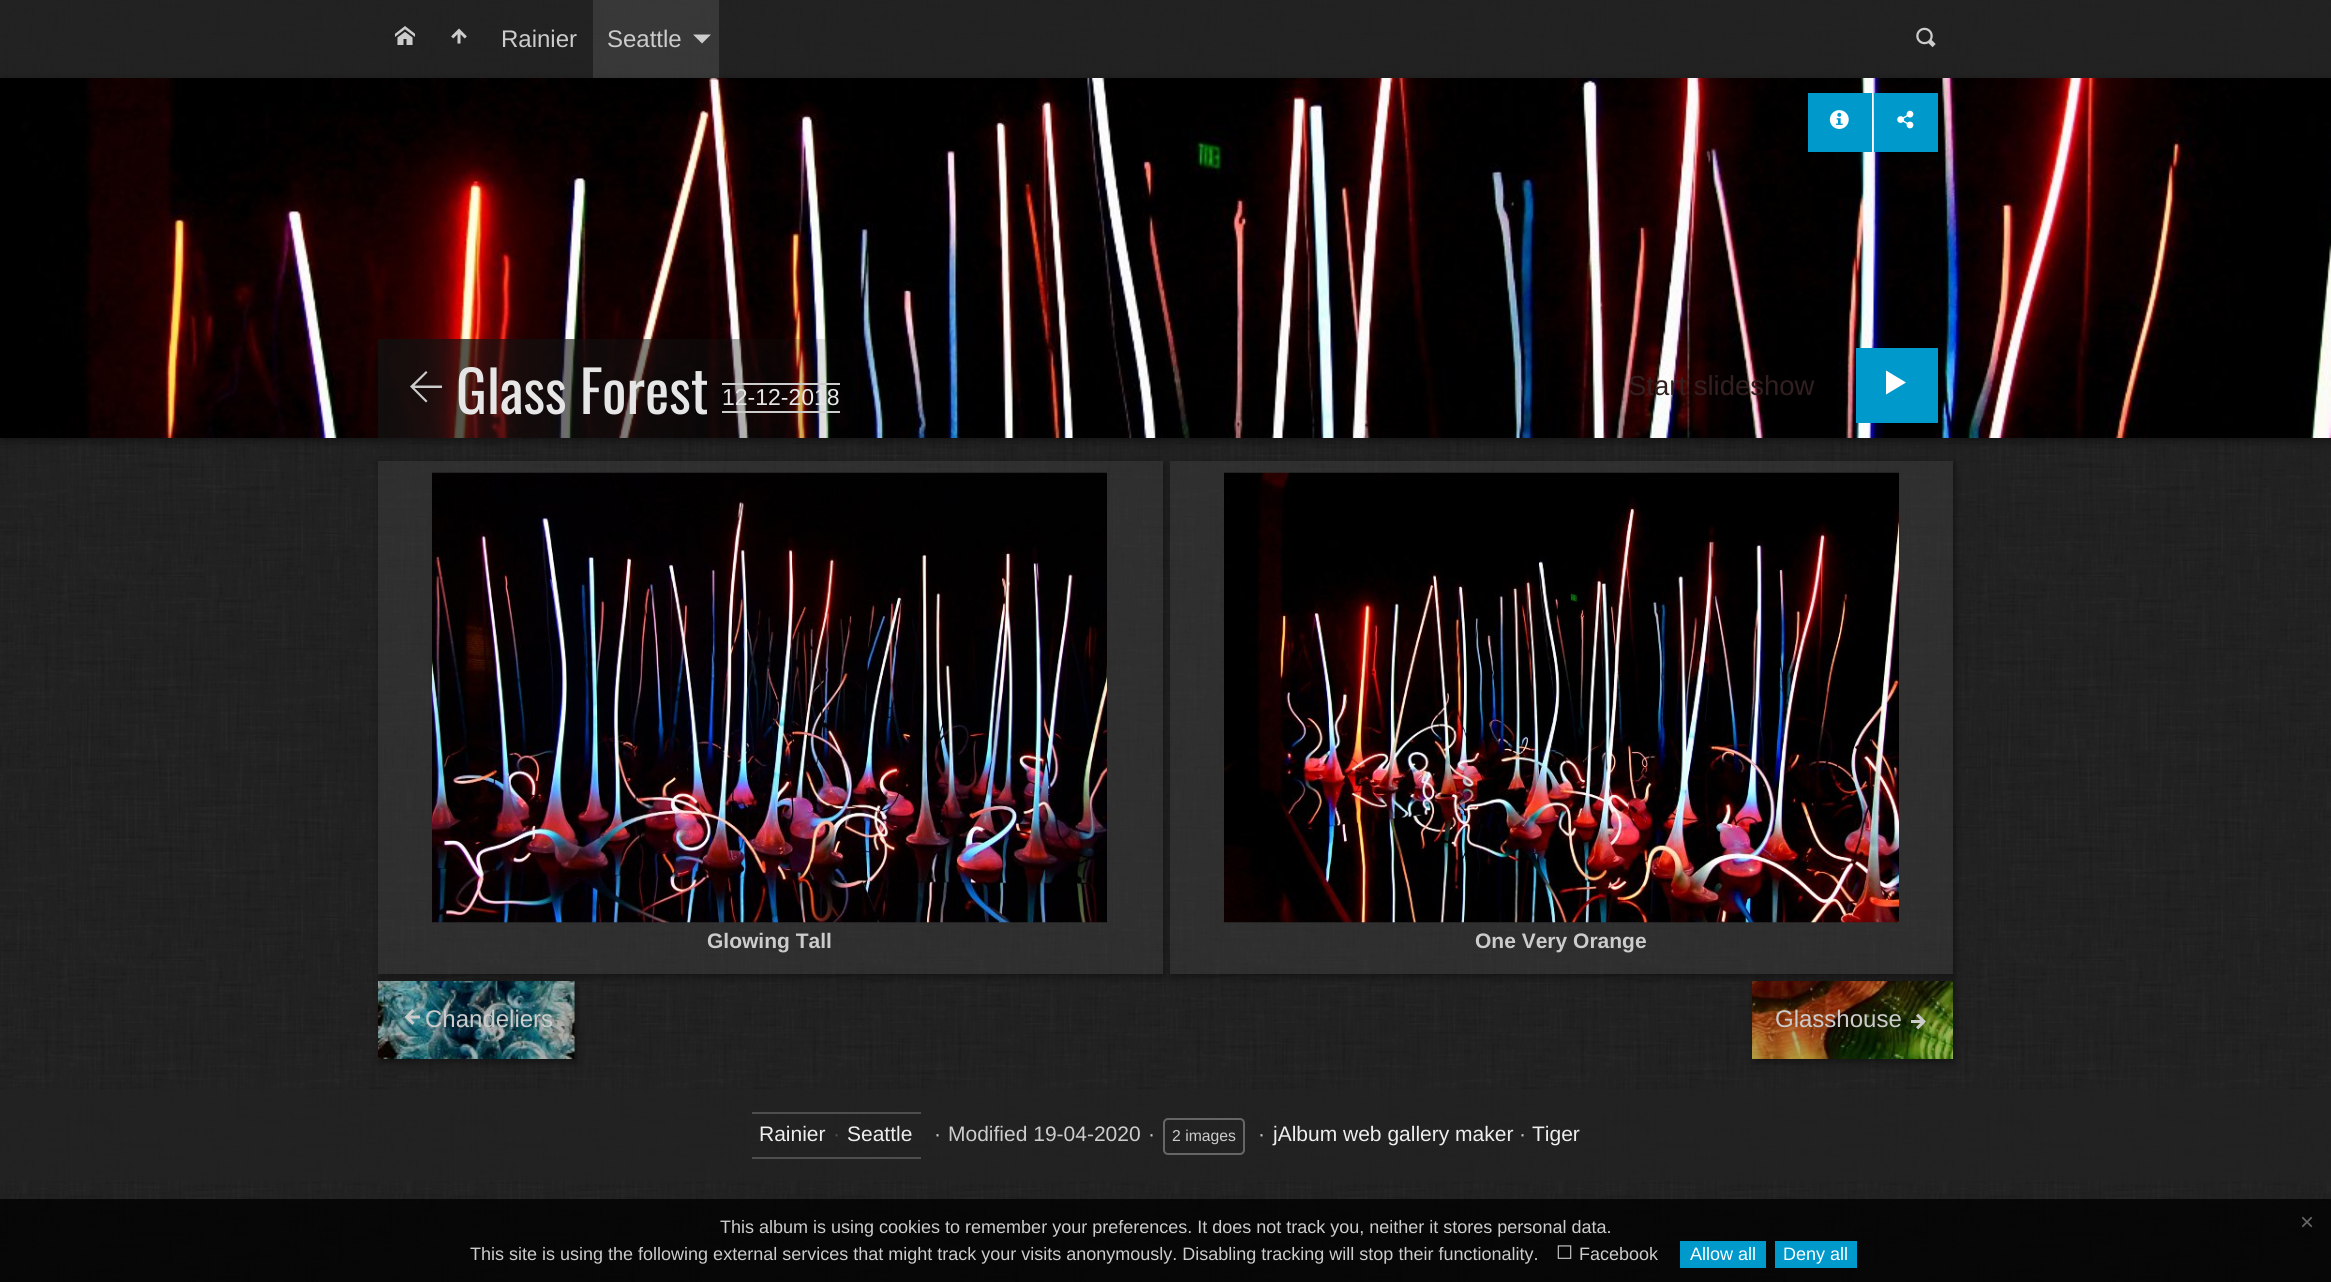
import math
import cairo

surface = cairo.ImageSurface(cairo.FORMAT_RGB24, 2331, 1282)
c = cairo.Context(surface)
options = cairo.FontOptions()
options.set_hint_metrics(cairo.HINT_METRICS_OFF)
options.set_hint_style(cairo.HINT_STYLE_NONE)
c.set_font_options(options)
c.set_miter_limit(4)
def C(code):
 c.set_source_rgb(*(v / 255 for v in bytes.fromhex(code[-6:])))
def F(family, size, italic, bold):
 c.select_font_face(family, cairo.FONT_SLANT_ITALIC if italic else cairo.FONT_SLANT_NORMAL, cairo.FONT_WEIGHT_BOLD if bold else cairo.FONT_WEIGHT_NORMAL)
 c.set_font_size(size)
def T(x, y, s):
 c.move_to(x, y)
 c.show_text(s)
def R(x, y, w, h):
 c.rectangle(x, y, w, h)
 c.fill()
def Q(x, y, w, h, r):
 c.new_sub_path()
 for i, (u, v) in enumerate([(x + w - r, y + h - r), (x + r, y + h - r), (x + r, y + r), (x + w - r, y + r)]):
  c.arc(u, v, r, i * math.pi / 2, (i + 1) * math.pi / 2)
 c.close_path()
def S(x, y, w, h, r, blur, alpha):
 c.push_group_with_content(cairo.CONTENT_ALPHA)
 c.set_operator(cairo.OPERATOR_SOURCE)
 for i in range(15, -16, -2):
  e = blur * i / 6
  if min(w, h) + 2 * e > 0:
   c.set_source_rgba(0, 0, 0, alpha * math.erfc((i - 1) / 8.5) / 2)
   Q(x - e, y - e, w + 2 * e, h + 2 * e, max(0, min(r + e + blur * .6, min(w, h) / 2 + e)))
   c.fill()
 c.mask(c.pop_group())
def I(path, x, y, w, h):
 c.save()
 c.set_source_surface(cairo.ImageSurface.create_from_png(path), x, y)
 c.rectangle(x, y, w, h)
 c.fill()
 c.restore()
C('222222')
c.paint()
I('1.png',0,0,2331,1282)
c.set_source_rgba(0.133,0.133,0.133,0.8)
R(0,0,2331,78)
I('2.png',394,26,22,19)
I('3.png',451,28,16,16)
F('Liberation Sans',24,0,0)
C('cccccc')
T(501,47,'Rainier')
C('000000')
S(2,81,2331,360,0,4.5,.45)
c.set_source_rgba(1,1,1,0.1)
R(593,0,126,78)
C('cccccc')
T(607,47,'Seattle')
c.new_path()
c.move_to(693,34.5)
c.line_to(711,34.5)
c.line_to(702,43.5)
c.close_path()
c.fill()
I('4.png',1916,27,20,21)
I('5.png',0,78,2331,360)
C('0099cc')
R(1808,93,64,59)
I('6.png',1829,110,20,19)
R(1874,93,64,59)
I('7.png',1897,110,17,19)
C('cccccc')
c.new_path()
c.move_to(410,386.5)
c.line_to(426,371)
c.line_to(427.5,372.5)
c.line_to(414.5,385.5)
c.line_to(442,385.5)
c.line_to(442,388)
c.line_to(414.5,388)
c.line_to(427.5,401)
c.line_to(426,402.5)
c.close_path()
c.fill()
F('Oswald',57.5,0,0)
C('e6e6e6')
T(456,414,'Glass Forest')
C('cccccc')
R(722,383,118,2)
R(722,411,118,2)
F('Liberation Sans',23,0,0)
C('e6e6e6')
T(722,405,'12-12-2018')
F('Liberation Sans',27.5,0,0)
C('321f20')
T(1628,395,'Start slideshow')
C('0099cc')
R(1856,348,82,75)
C('ffffff')
c.new_path()
c.move_to(1906,382.5)
c.line_to(1886,394.5)
c.line_to(1886,370.5)
c.close_path()
c.fill()
C('000000')
S(380,984,196,78,0,4.5,.45)
c.set_source_rgba(0.267,0.267,0.267,0.4)
R(574,981,1,78)
I('10.png',378,981,197,78)
c.set_source_rgba(0,0,0,0.3)
R(378,981,197,78)
c.save()
c.set_fill_rule(cairo.FILL_RULE_EVEN_ODD)
c.new_path()
c.move_to(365,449)
c.line_to(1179,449)
c.line_to(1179,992)
c.line_to(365,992)
c.close_path()
c.move_to(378,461)
c.line_to(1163,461)
c.line_to(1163,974)
c.line_to(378,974)
c.close_path()
c.clip()
C('000000')
S(380,464,784,513,0,4.5,.45)
c.restore()
c.set_source_rgba(0.267,0.267,0.267,0.4)
R(378,461,785,513)
I('8.png',432,472,675,451)
F('Liberation Sans',21,0,1)
C('cccccc')
T(707,948,'Glowing Tall')
C('000000')
S(1754,984,201,78,0,4.5,.45)
I('12.png',1752,981,201,78)
c.save()
c.set_fill_rule(cairo.FILL_RULE_EVEN_ODD)
c.new_path()
c.move_to(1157,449)
c.line_to(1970,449)
c.line_to(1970,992)
c.line_to(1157,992)
c.close_path()
c.move_to(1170,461)
c.line_to(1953,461)
c.line_to(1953,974)
c.line_to(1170,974)
c.close_path()
c.clip()
S(1172,464,783,513,0,4.5,.45)
c.restore()
c.set_source_rgba(0.267,0.267,0.267,0.4)
R(1170,461,783,513)
I('9.png',1224,472,675,451)
C('cccccc')
T(1475,948,'One Very Orange')
I('11.png',404,1009,16,16)
F('Liberation Sans',24,0,0)
T(425,1027,'Chandeliers')
T(1775,1027,'Glasshouse')
I('13.png',1911,1013,15,17)
c.set_source_rgba(0.133,0.133,0.133,0.8)
R(0,1089,2331,92)
C('4e4e4e')
R(752,1112,169,2)
R(752,1157,169,2)
F('Liberation Sans',21,0,0)
C('eeeeee')
T(759,1141,'Rainier')
C('4e4e4e')
T(833,1141,'·')
C('eeeeee')
T(847,1141,'Seattle')
C('cccccc')
T(934,1141,'·')
T(948,1141,'Modified 19-04-2020')
T(1148,1141,'·')
Q(1164,1119,80,35,4)
C('666666')
c.stroke()
F('Liberation Sans',15.75,0,0)
C('cccccc')
T(1172,1141,'2 images')
F('Liberation Sans',21,0,0)
T(1258,1141,'·')
C('eeeeee')
T(1273,1141,'jAlbum web gallery maker')
C('cccccc')
T(1519,1141,'·')
C('eeeeee')
T(1532,1141,'Tiger')
c.set_source_rgba(0,0,0,0.8)
R(0,1199,2331,83)
F('Liberation Sans',18,0,0)
C('cccccc')
T(720,1233,'This album is using cookies to remember your preferences. It does not track you, neither it stores personal data.')
F('Liberation Sans',24,0,0)
C('666666')
T(2300,1230,'×')
F('Liberation Sans',18,0,0)
C('cccccc')
T(470,1260,'This site is using the following external services that might track your visits anonymously. Disabling tracking will stop their functionality.')
I('14.png',1557,1245,15,14)
T(1579,1260,'Facebook')
C('0099cc')
R(1680,1241,86,27)
C('ffffff')
T(1690,1260,'Allow all')
C('0099cc')
R(1775,1241,82,27)
C('ffffff')
T(1783,1260,'Deny all')
surface.write_to_png('o.png')
